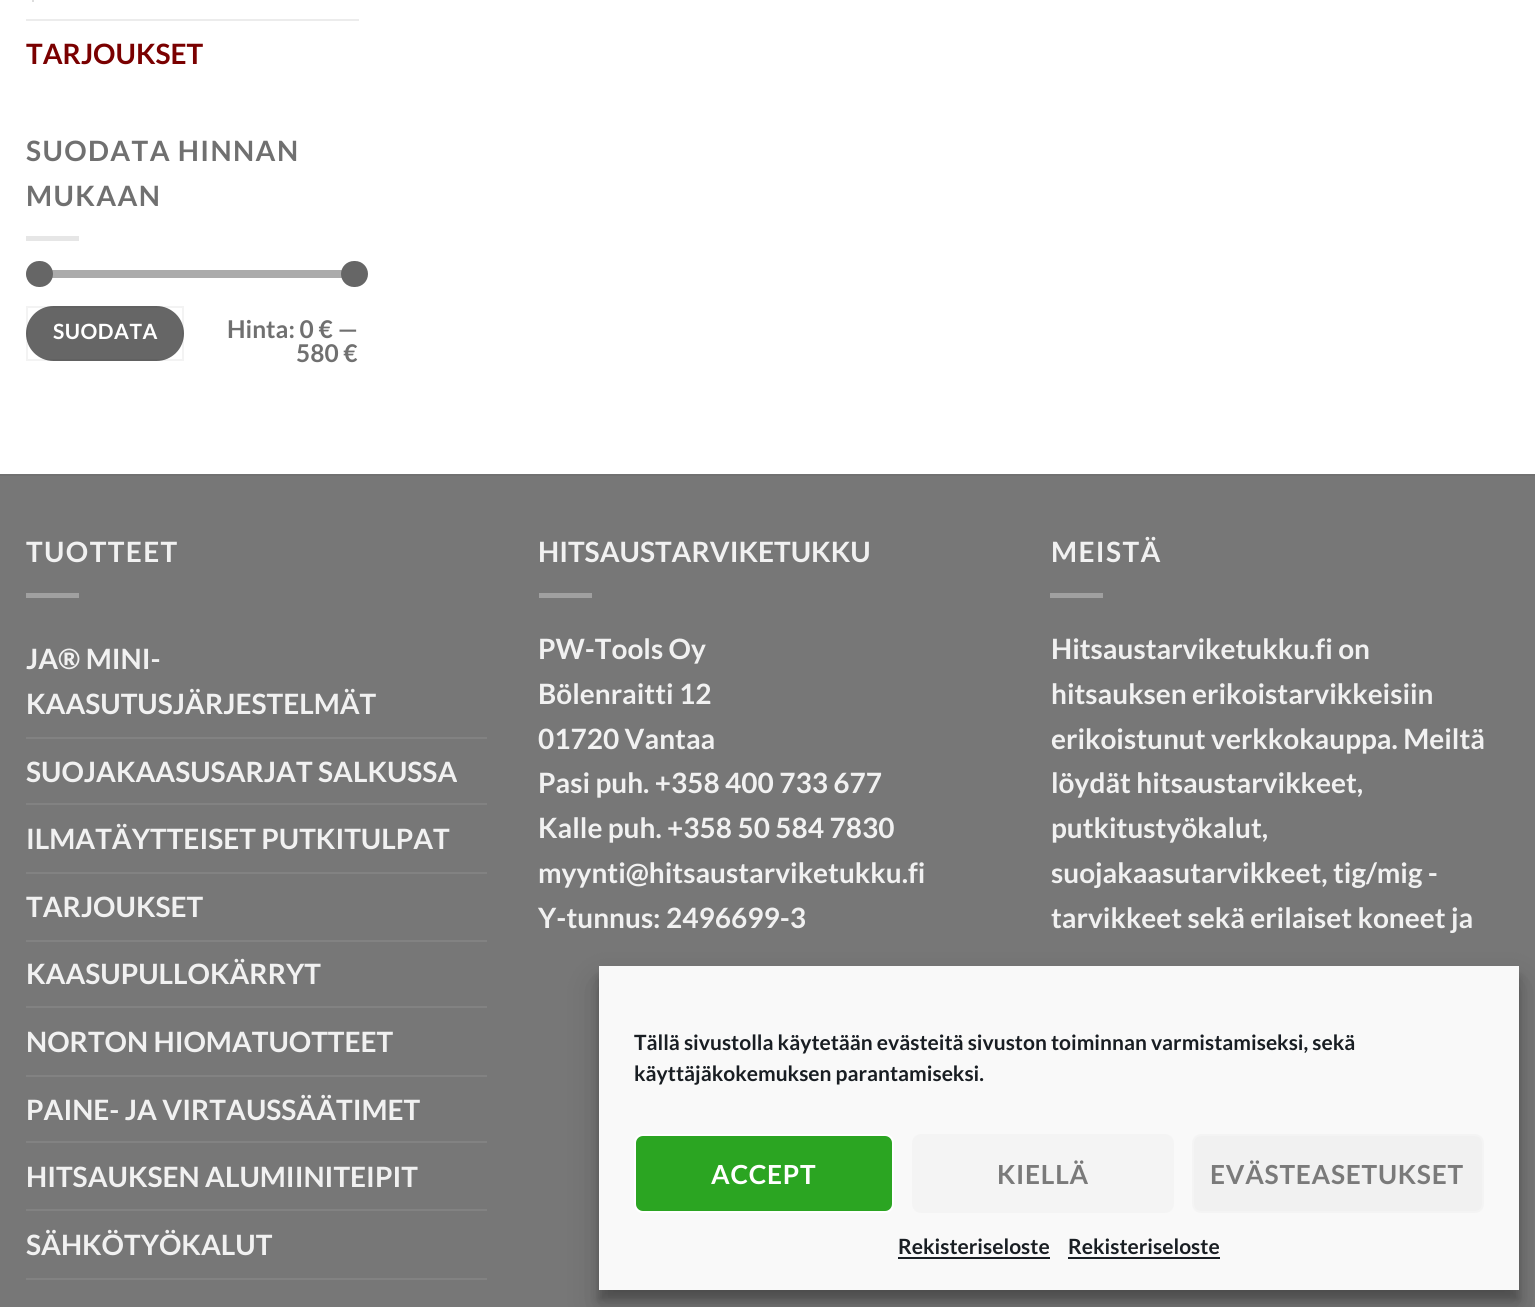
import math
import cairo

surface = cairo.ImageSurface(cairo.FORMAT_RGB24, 1535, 1307)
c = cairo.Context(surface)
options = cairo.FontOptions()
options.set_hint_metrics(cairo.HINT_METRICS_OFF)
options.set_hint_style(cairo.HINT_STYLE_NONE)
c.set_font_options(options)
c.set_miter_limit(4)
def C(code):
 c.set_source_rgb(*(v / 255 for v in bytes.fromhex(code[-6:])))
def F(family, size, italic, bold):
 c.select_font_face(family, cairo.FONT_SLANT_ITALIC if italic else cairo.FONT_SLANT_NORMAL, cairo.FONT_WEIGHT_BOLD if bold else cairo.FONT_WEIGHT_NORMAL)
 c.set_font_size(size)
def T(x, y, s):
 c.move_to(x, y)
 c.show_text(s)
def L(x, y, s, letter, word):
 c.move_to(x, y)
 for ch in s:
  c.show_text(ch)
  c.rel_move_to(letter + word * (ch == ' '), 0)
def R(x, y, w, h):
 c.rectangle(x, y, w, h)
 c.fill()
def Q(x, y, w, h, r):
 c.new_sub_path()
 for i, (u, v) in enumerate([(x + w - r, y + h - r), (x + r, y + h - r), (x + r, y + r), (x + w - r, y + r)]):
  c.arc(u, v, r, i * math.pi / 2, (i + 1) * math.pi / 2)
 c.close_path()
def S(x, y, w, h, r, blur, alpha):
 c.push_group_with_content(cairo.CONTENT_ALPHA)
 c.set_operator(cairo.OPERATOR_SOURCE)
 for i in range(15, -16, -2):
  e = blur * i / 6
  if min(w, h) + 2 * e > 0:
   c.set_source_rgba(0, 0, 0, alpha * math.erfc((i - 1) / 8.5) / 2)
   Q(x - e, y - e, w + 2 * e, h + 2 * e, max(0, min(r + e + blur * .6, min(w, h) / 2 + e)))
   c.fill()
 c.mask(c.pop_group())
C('ffffff')
c.paint()
C('dddddd')
R(32,0,2,2)
C('ececec')
R(26,19,333,2)
F('Lato',28,0,1)
C('7a0000')
T(26,64,'TARJOUKSET')
C('707070')
L(26,161,'SUODATA HINNAN',1.4,0)
L(26,206,'MUKAAN',1.4,0)
C('e6e6e6')
R(26,236,53,5)
C('f1f1f1')
Q(26,270,333,8,4)
c.fill()
c.set_source_rgba(0.4,0.4,0.4,0.5)
Q(26,270,333,8,4)
c.fill()
C('666666')
Q(26,261,27,26,13)
c.fill()
Q(341,261,27,26,13)
c.fill()
Q(26,306,158,55,27.5)
c.fill()
c.rectangle(27,307,156,53)
c.set_source_rgba(0,0,0,0.05)
c.stroke()
F('Lato',21,0,1)
C('ffffff')
L(53,339,'SUODATA',.5,0)
F('Lato',24.5,0,1)
C('707070')
T(227,338,'Hinta: 0 € —')
T(296,362,'580 €')
C('777777')
R(0,476,1535,831)
C('717171')
R(0,474,1535,2)
F('Lato',28,0,1)
C('f1f1f1')
L(26,562,'TUOTTEET',1.4,0)
C('a0a0a0')
R(26,593,53,5)
C('f1f1f1')
T(26,669,'JA® MINI-')
T(26,714,'KAASUTUSJÄRJESTELMÄT')
C('828282')
R(26,737,461,2)
C('f1f1f1')
T(26,782,'SUOJAKAASUSARJAT SALKUSSA')
C('828282')
R(26,803,461,2)
C('f1f1f1')
T(26,849,'ILMATÄYTTEISET PUTKITULPAT')
C('828282')
R(26,872,461,2)
C('f1f1f1')
T(26,917,'TARJOUKSET')
C('828282')
R(26,940,461,2)
C('f1f1f1')
T(26,984,'KAASUPULLOKÄRRYT')
C('828282')
R(26,1006,461,2)
C('f1f1f1')
T(26,1052,'NORTON HIOMATUOTTEET')
C('828282')
R(26,1075,461,2)
C('f1f1f1')
T(26,1120,'PAINE- JA VIRTAUSSÄÄTIMET')
C('828282')
R(26,1141,461,2)
C('f1f1f1')
T(26,1187,'HITSAUKSEN ALUMIINITEIPIT')
C('828282')
R(26,1209,461,2)
C('f1f1f1')
T(26,1255,'SÄHKÖTYÖKALUT')
C('828282')
R(26,1278,461,2)
C('f1f1f1')
T(538,562,'HITSAUSTARVIKETUKKU')
C('a0a0a0')
R(539,593,53,5)
C('f1f1f1')
T(538,659,'PW-Tools Oy')
T(538,704,'Bölenraitti 12')
T(538,749,'01720 Vantaa')
T(538,793,'Pasi puh. +358 400 733 677')
T(538,838,'Kalle puh. +358 50 584 7830')
T(538,883,'myynti@hitsaustarviketukku.fi')
T(538,928,'Y-tunnus: 2496699-3')
L(1051,562,'MEISTÄ',1.4,0)
C('a0a0a0')
R(1050,593,53,5)
C('f1f1f1')
T(1051,659,'Hitsaustarviketukku.fi on')
T(1051,704,'hitsauksen erikoistarvikkeisiin')
T(1051,749,'erikoistunut verkkokauppa. Meiltä')
T(1051,793,'löydät hitsaustarvikkeet,')
T(1051,838,'putkitustyökalut,')
T(1051,883,'suojakaasutarvikkeet, tig/mig -')
T(1051,928,'tarvikkeet sekä erilaiset koneet ja')
C('000000')
S(599,977,920,323,0,5,.23)
S(599,984,920,323,0,17.5,.19)
C('f9f9f9')
R(599,966,920,324)
F('Lato',21,0,1)
C('191e23')
T(634,1050,'Tällä sivustolla käytetään evästeitä sivuston toiminnan varmistamiseksi, sekä')
T(634,1081,'käyttäjäkokemuksen parantamiseksi.')
C('2ba522')
Q(635,1135,258,77,8)
c.fill_preserve()
C('ffffff')
c.stroke()
F('Lato',26.25,0,1)
L(711,1184,'ACCEPT',.75,0)
C('f4f4f4')
Q(912,1134,262,79,9)
c.fill()
C('7a7a7a')
L(997,1184,'KIELLÄ',.75,0)
C('f1f1f1')
Q(1193,1135,290,77,8)
c.fill_preserve()
C('f4f4f4')
c.stroke()
C('7a7a7a')
L(1210,1184,'EVÄSTEASETUKSET',.75,0)
F('Lato',21,0,1)
C('191e23')
T(898,1254,'Rekisteriseloste')
R(898,1257,152,2)
T(1068,1254,'Rekisteriseloste')
R(1068,1257,152,2)
surface.write_to_png('o.png')
